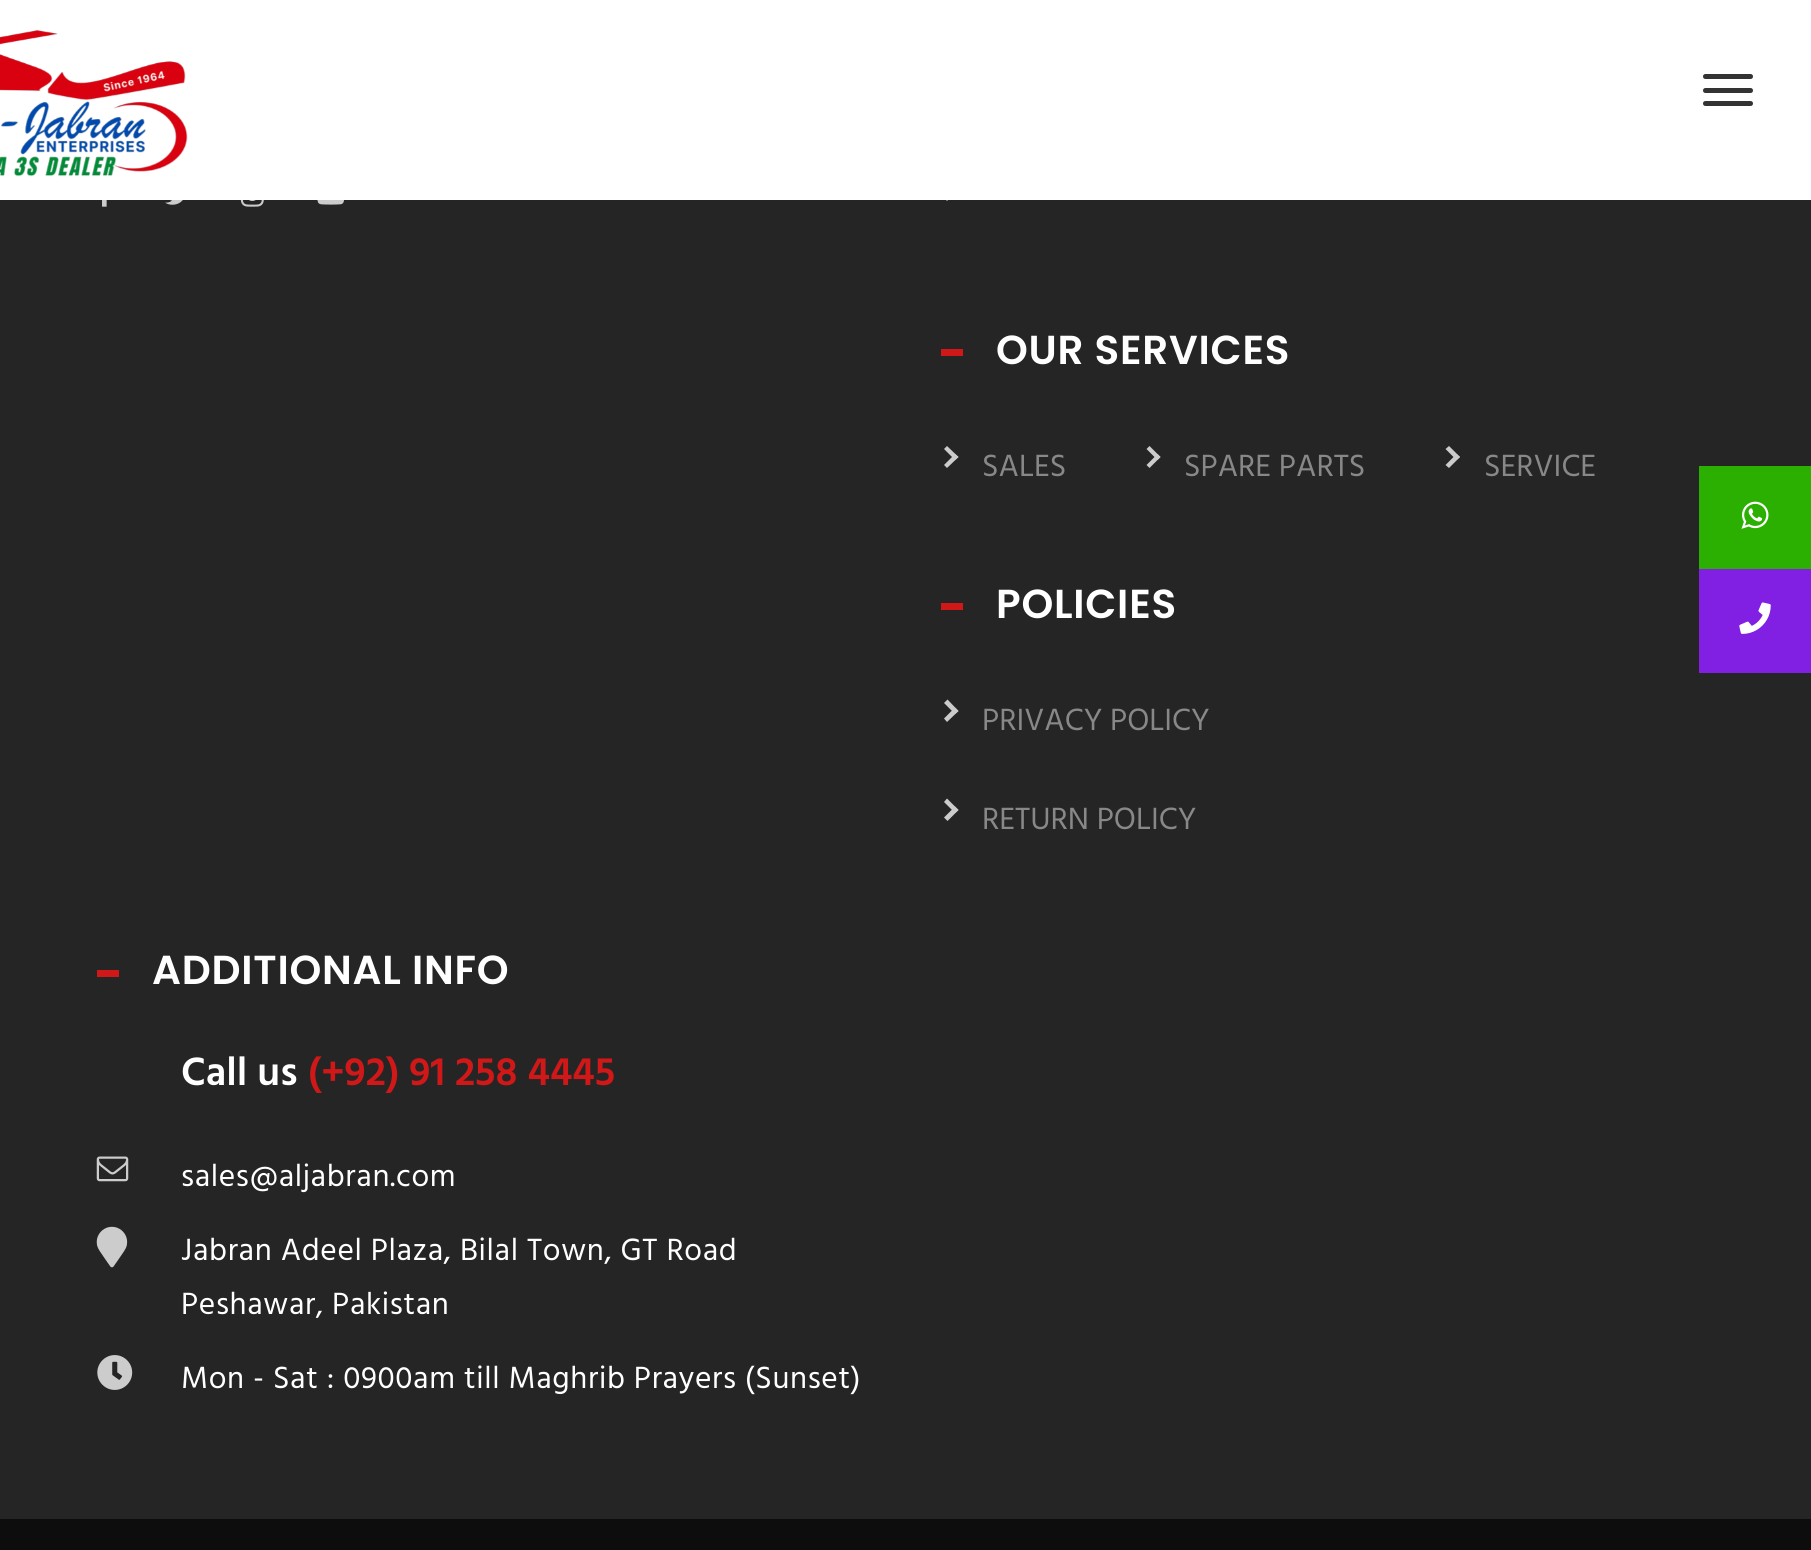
import math
import cairo

surface = cairo.ImageSurface(cairo.FORMAT_RGB24, 1811, 1550)
c = cairo.Context(surface)
options = cairo.FontOptions()
options.set_hint_metrics(cairo.HINT_METRICS_OFF)
options.set_hint_style(cairo.HINT_STYLE_NONE)
c.set_font_options(options)
c.set_miter_limit(4)
def C(code):
 c.set_source_rgb(*(v / 255 for v in bytes.fromhex(code[-6:])))
def F(family, size, italic, bold):
 c.select_font_face(family, cairo.FONT_SLANT_ITALIC if italic else cairo.FONT_SLANT_NORMAL, cairo.FONT_WEIGHT_BOLD if bold else cairo.FONT_WEIGHT_NORMAL)
 c.set_font_size(size)
def T(x, y, s):
 c.move_to(x, y)
 c.show_text(s)
def L(x, y, s, letter, word):
 c.move_to(x, y)
 for ch in s:
  c.show_text(ch)
  c.rel_move_to(letter + word * (ch == ' '), 0)
def R(x, y, w, h):
 c.rectangle(x, y, w, h)
 c.fill()
def I(path, x, y, w, h):
 c.save()
 c.set_source_surface(cairo.ImageSurface.create_from_png(path), x, y)
 c.rectangle(x, y, w, h)
 c.fill()
 c.restore()
C('252525')
c.paint()
C('cccccc')
c.new_path()
c.move_to(955,186.5)
c.line_to(958.5,189.5)
c.line_to(947,201)
c.line_to(944,197.5)
c.close_path()
c.fill()
C('ffffff')
R(0,0,1811,200)
I('1.png',0,30,188,147)
C('333333')
c.new_path()
c.move_to(1705.5,74)
c.line_to(1728,74)
c.line_to(1728,79)
c.line_to(1705.5,79)
c.curve_to(1704,79,1703,78,1703,76.5)
c.curve_to(1703,75,1704,74,1705.5,74)
c.close_path()
c.fill()
c.new_path()
c.move_to(1728,74)
c.line_to(1750.5,74)
c.curve_to(1752,74,1753,75,1753,76.5)
c.curve_to(1753,78,1752,79,1750.5,79)
c.line_to(1728,79)
c.close_path()
c.fill()
c.new_path()
c.move_to(1705.5,88)
c.line_to(1728,88)
c.line_to(1728,93)
c.line_to(1705.5,93)
c.curve_to(1704,93,1703,92,1703,90.5)
c.curve_to(1703,89,1704,88,1705.5,88)
c.close_path()
c.fill()
c.new_path()
c.move_to(1728,88)
c.line_to(1750.5,88)
c.curve_to(1752,88,1753,89,1753,90.5)
c.curve_to(1753,92,1752,93,1750.5,93)
c.line_to(1728,93)
c.close_path()
c.fill()
c.new_path()
c.move_to(1705.5,101)
c.line_to(1728,101)
c.line_to(1728,106)
c.line_to(1705.5,106)
c.curve_to(1704,106,1703,105,1703,103.5)
c.curve_to(1703,102,1704,101,1705.5,101)
c.close_path()
c.fill()
c.new_path()
c.move_to(1728,101)
c.line_to(1750.5,101)
c.curve_to(1752,101,1753,102,1753,103.5)
c.curve_to(1753,105,1752,106,1750.5,106)
c.line_to(1728,106)
c.close_path()
c.fill()
I('2.png',102,200,5,7)
I('3.png',165,200,18,5)
I('4.png',240,200,24,7)
I('5.png',317,200,27,5)
C('d01818')
R(941,349,22,7)
F('Poppins SemiBold',40.5,0,0)
C('ffffff')
L(996,364,'OUR SERVICES',.75,0)
C('cccccc')
c.new_path()
c.move_to(947,446)
c.line_to(958.5,457)
c.line_to(955,460)
c.line_to(944,449)
c.close_path()
c.fill()
c.new_path()
c.move_to(955,454)
c.line_to(958.5,457)
c.line_to(947,468)
c.line_to(944,465)
c.close_path()
c.fill()
F('Hind',31.5,0,0)
C('888888')
T(982,476,'SALES')
C('cccccc')
c.new_path()
c.move_to(1149.5,446)
c.line_to(1160.5,457)
c.line_to(1157.5,460)
c.line_to(1146.5,449)
c.close_path()
c.fill()
c.new_path()
c.move_to(1157.5,454)
c.line_to(1160.5,457)
c.line_to(1149.5,468)
c.line_to(1146.5,465)
c.close_path()
c.fill()
C('888888')
T(1184,476,'SPARE PARTS')
C('cccccc')
c.new_path()
c.move_to(1449,446)
c.line_to(1460,457)
c.line_to(1456.5,460)
c.line_to(1445.5,449)
c.close_path()
c.fill()
c.new_path()
c.move_to(1456.5,454)
c.line_to(1460,457)
c.line_to(1449,468)
c.line_to(1445.5,465)
c.close_path()
c.fill()
C('888888')
T(1484,476,'SERVICE')
C('d01818')
R(941,603,22,7)
F('Poppins SemiBold',40.5,0,0)
C('ffffff')
L(996,618,'POLICIES',.75,0)
C('cccccc')
c.new_path()
c.move_to(947.5,699.5)
c.line_to(958.5,711)
c.line_to(955,714)
c.line_to(944,703)
c.close_path()
c.fill()
c.new_path()
c.move_to(955,707.5)
c.line_to(958.5,711)
c.line_to(947,722)
c.line_to(944,718.5)
c.close_path()
c.fill()
F('Hind',31.5,0,0)
C('888888')
T(982,730,'PRIVACY POLICY')
C('cccccc')
c.new_path()
c.move_to(947,798.5)
c.line_to(958.5,810)
c.line_to(955,813)
c.line_to(944,802)
c.close_path()
c.fill()
c.new_path()
c.move_to(955,806.5)
c.line_to(958.5,810)
c.line_to(947.5,821)
c.line_to(944,817.5)
c.close_path()
c.fill()
C('888888')
T(982,829,'RETURN POLICY')
C('d01818')
R(97,970,22,7)
F('Poppins SemiBold',40.5,0,0)
C('ffffff')
L(152,984,'ADDITIONAL INFO',.75,0)
F('Hind SemiBold',40.5,0,0)
T(181,1085,'Call us')
C('d01818')
T(308,1085,'(+92) 91 258 4445')
I('6.png',96,1156,33,26)
F('Hind',31.5,0,0)
C('ffffff')
L(181,1186,'sales@aljabran.com',.65,0)
I('7.png',96,1226,32,42)
L(181,1260,'Jabran Adeel Plaza, Bilal Town, GT Road',.65,0)
L(181,1314,'Peshawar, Pakistan',.65,0)
I('8.png',97,1355,36,35)
L(181,1388,'Mon - Sat : 0900am till Maghrib Prayers (Sunset)',.65,0)
C('0d0d0d')
R(0,1519,1811,31)
C('2baf00')
R(1699,466,112,103)
I('9.png',1741,501,28,28)
C('811fe2')
R(1699,569,112,104)
I('10.png',1739,602,32,32)
surface.write_to_png('o.png')
